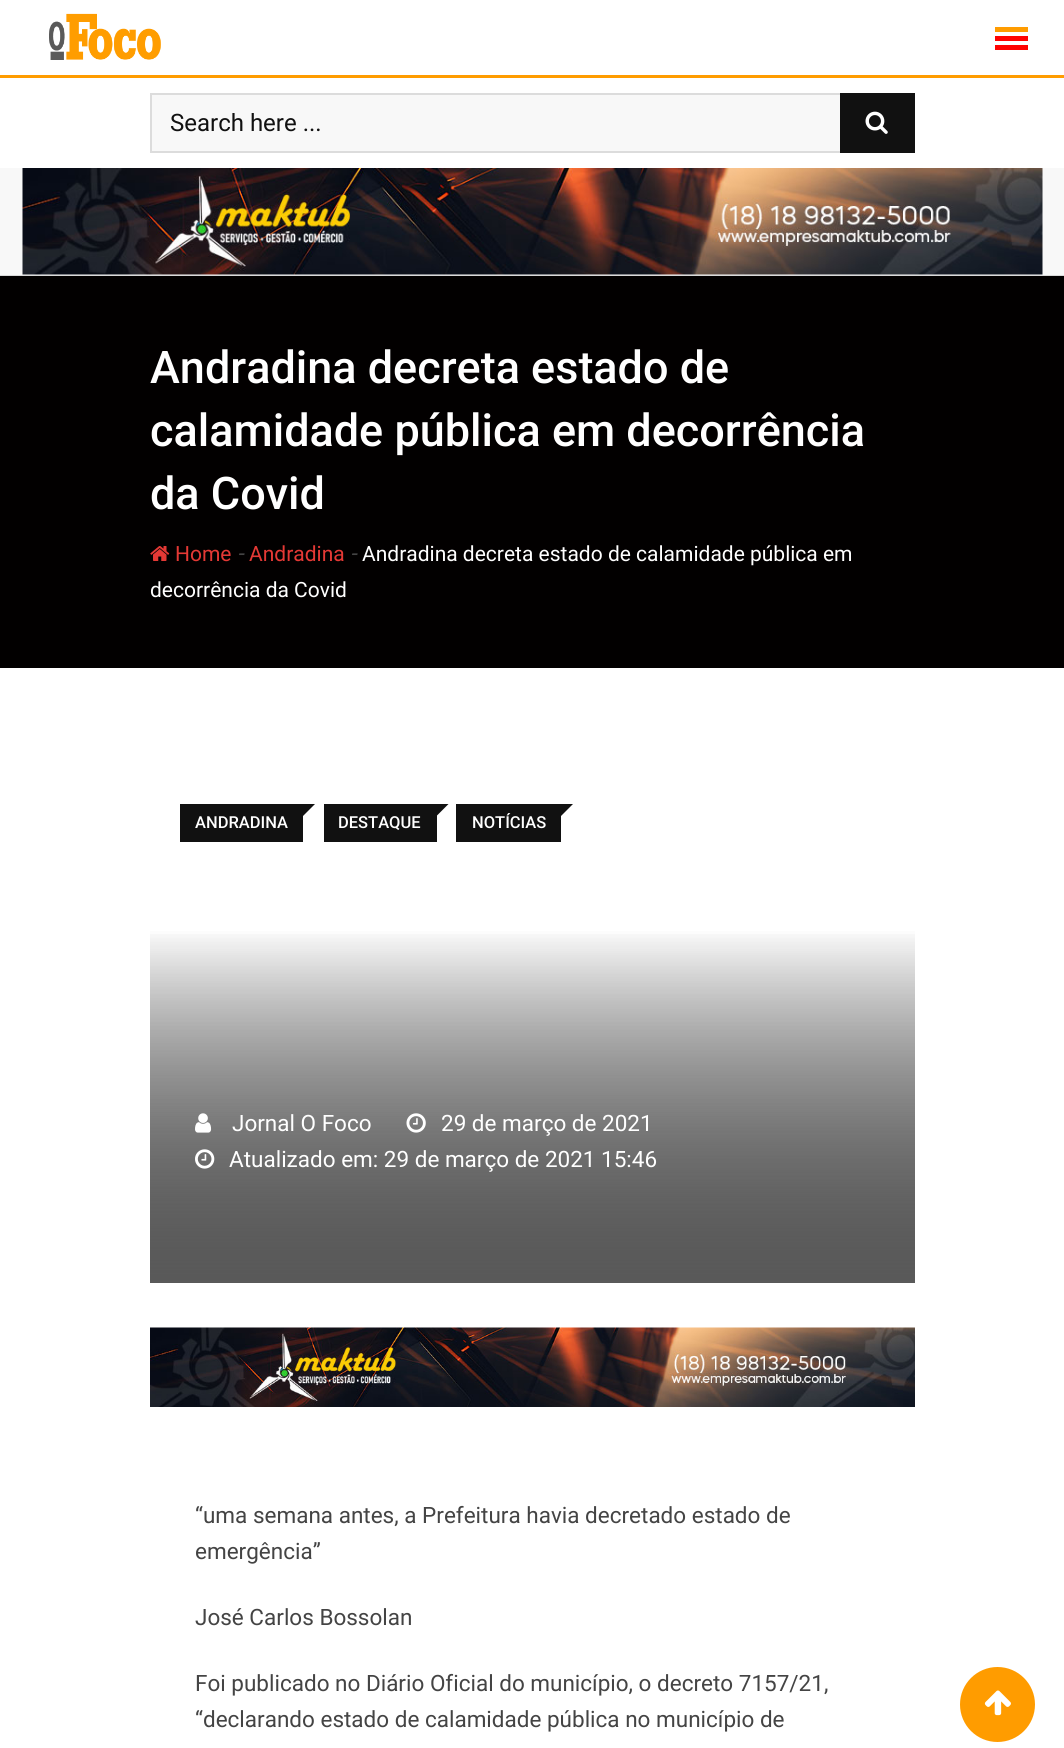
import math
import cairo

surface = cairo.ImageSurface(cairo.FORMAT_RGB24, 1064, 1748)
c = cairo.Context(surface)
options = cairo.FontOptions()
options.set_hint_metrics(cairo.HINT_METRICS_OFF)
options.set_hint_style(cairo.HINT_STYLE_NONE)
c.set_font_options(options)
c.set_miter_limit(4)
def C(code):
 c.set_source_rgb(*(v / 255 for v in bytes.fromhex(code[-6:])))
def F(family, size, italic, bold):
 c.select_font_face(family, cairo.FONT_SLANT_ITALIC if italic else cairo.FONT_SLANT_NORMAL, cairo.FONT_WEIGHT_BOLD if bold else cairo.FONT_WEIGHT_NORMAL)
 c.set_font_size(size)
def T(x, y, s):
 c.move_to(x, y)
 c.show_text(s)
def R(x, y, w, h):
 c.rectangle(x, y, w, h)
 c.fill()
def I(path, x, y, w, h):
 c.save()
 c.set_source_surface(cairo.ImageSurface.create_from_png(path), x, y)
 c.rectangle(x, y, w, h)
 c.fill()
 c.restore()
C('ffffff')
c.paint()
C('ff9c00')
R(0,75,1064,3)
I('1.png',49,13,112,47)
R(995,27,33,5)
C('ff0302')
R(995,36,33,5)
R(995,45,33,5)
C('f8f8f8')
R(152,95,688,56)
c.rectangle(151,94,763,58)
C('dcdcdc')
c.stroke()
F('Roboto',24,0,0)
C('111111')
T(170,131,'Search here ...')
R(840,93,75,60)
I('2.png',865,111,23,23)
C('f8f8f8')
R(0,168,1064,107)
C('dadada')
R(0,275,1064,1)
I('3.png',22,168,1021,107)
C('020000')
R(0,276,1064,392)
F('Roboto Medium',45,0,0)
C('ffffff')
T(150,383,'Andradina decreta estado de')
T(150,446,'calamidade pública em decorrência')
T(150,509,'da Covid')
I('4.png',150,546,20,15)
F('Roboto',21,0,0)
C('e53935')
T(175,561,'Home')
F('Roboto',22.5,1,0)
C('444444')
T(237,561,'-')
F('Roboto',21,0,0)
C('e53935')
T(249,561,'Andradina')
F('Roboto',22.5,1,0)
C('444444')
T(350,561,'-')
F('Roboto',21,0,0)
C('ffffff')
T(362,561,'Andradina decreta estado de calamidade pública em')
T(150,597,'decorrência da Covid')
C('111111')
R(180,804,123,38)
c.new_path()
c.move_to(303,804)
c.line_to(315,804)
c.line_to(303,816)
c.close_path()
c.fill()
F('Roboto Medium',16.5,0,0)
C('ffffff')
T(195,828,'ANDRADINA')
C('111111')
R(324,804,113,38)
c.new_path()
c.move_to(436.5,804)
c.line_to(448.5,804)
c.line_to(436.5,816)
c.close_path()
c.fill()
C('ffffff')
T(338,828,'DESTAQUE')
C('111111')
R(456,804,105,38)
c.new_path()
c.move_to(561,804)
c.line_to(573,804)
c.line_to(561,816)
c.close_path()
c.fill()
C('ffffff')
T(472,828,'NOTÍCIAS')
gradient = cairo.LinearGradient(533,926,533,1283)
gradient.add_color_stop_rgba(0,1,1,1,1)
gradient.add_color_stop_rgba(1,0.349,0.349,0.349,1)
c.set_source(gradient)
R(150,931,765,350)
gradient = cairo.LinearGradient(533,926,533,1283)
gradient.add_color_stop_rgba(0,0.349,0.349,0.349,0)
gradient.add_color_stop_rgba(1,0.349,0.349,0.349,1)
c.set_source(gradient)
R(150,934,765,349)
I('5.png',195,1113,17,20)
F('Roboto',22.5,0,0)
C('ffffff')
T(232,1131,'Jornal O Foco')
I('6.png',406,1113,20,20)
T(441,1131,'29 de março de 2021')
I('7.png',195,1149,20,20)
T(229,1167,'Atualizado em: 29 de março de 2021 15:46')
I('8.png',150,1327,765,80)
C('444444')
T(195,1523,'“uma semana antes, a Prefeitura havia decretado estado de')
T(195,1559,'emergência”')
T(195,1625,'José Carlos Bossolan')
T(195,1691,'Foi publicado no Diário Oficial do município, o decreto 7157/21,')
T(195,1727,'“declarando estado de calamidade pública no município de')
C('ff9c00')
c.new_path()
c.arc(997.5,1704.5,36,0,2 * math.pi)
c.fill_preserve()
c.set_line_width(3)
c.stroke()
I('9.png',984,1690,27,26)
surface.write_to_png('o.png')
